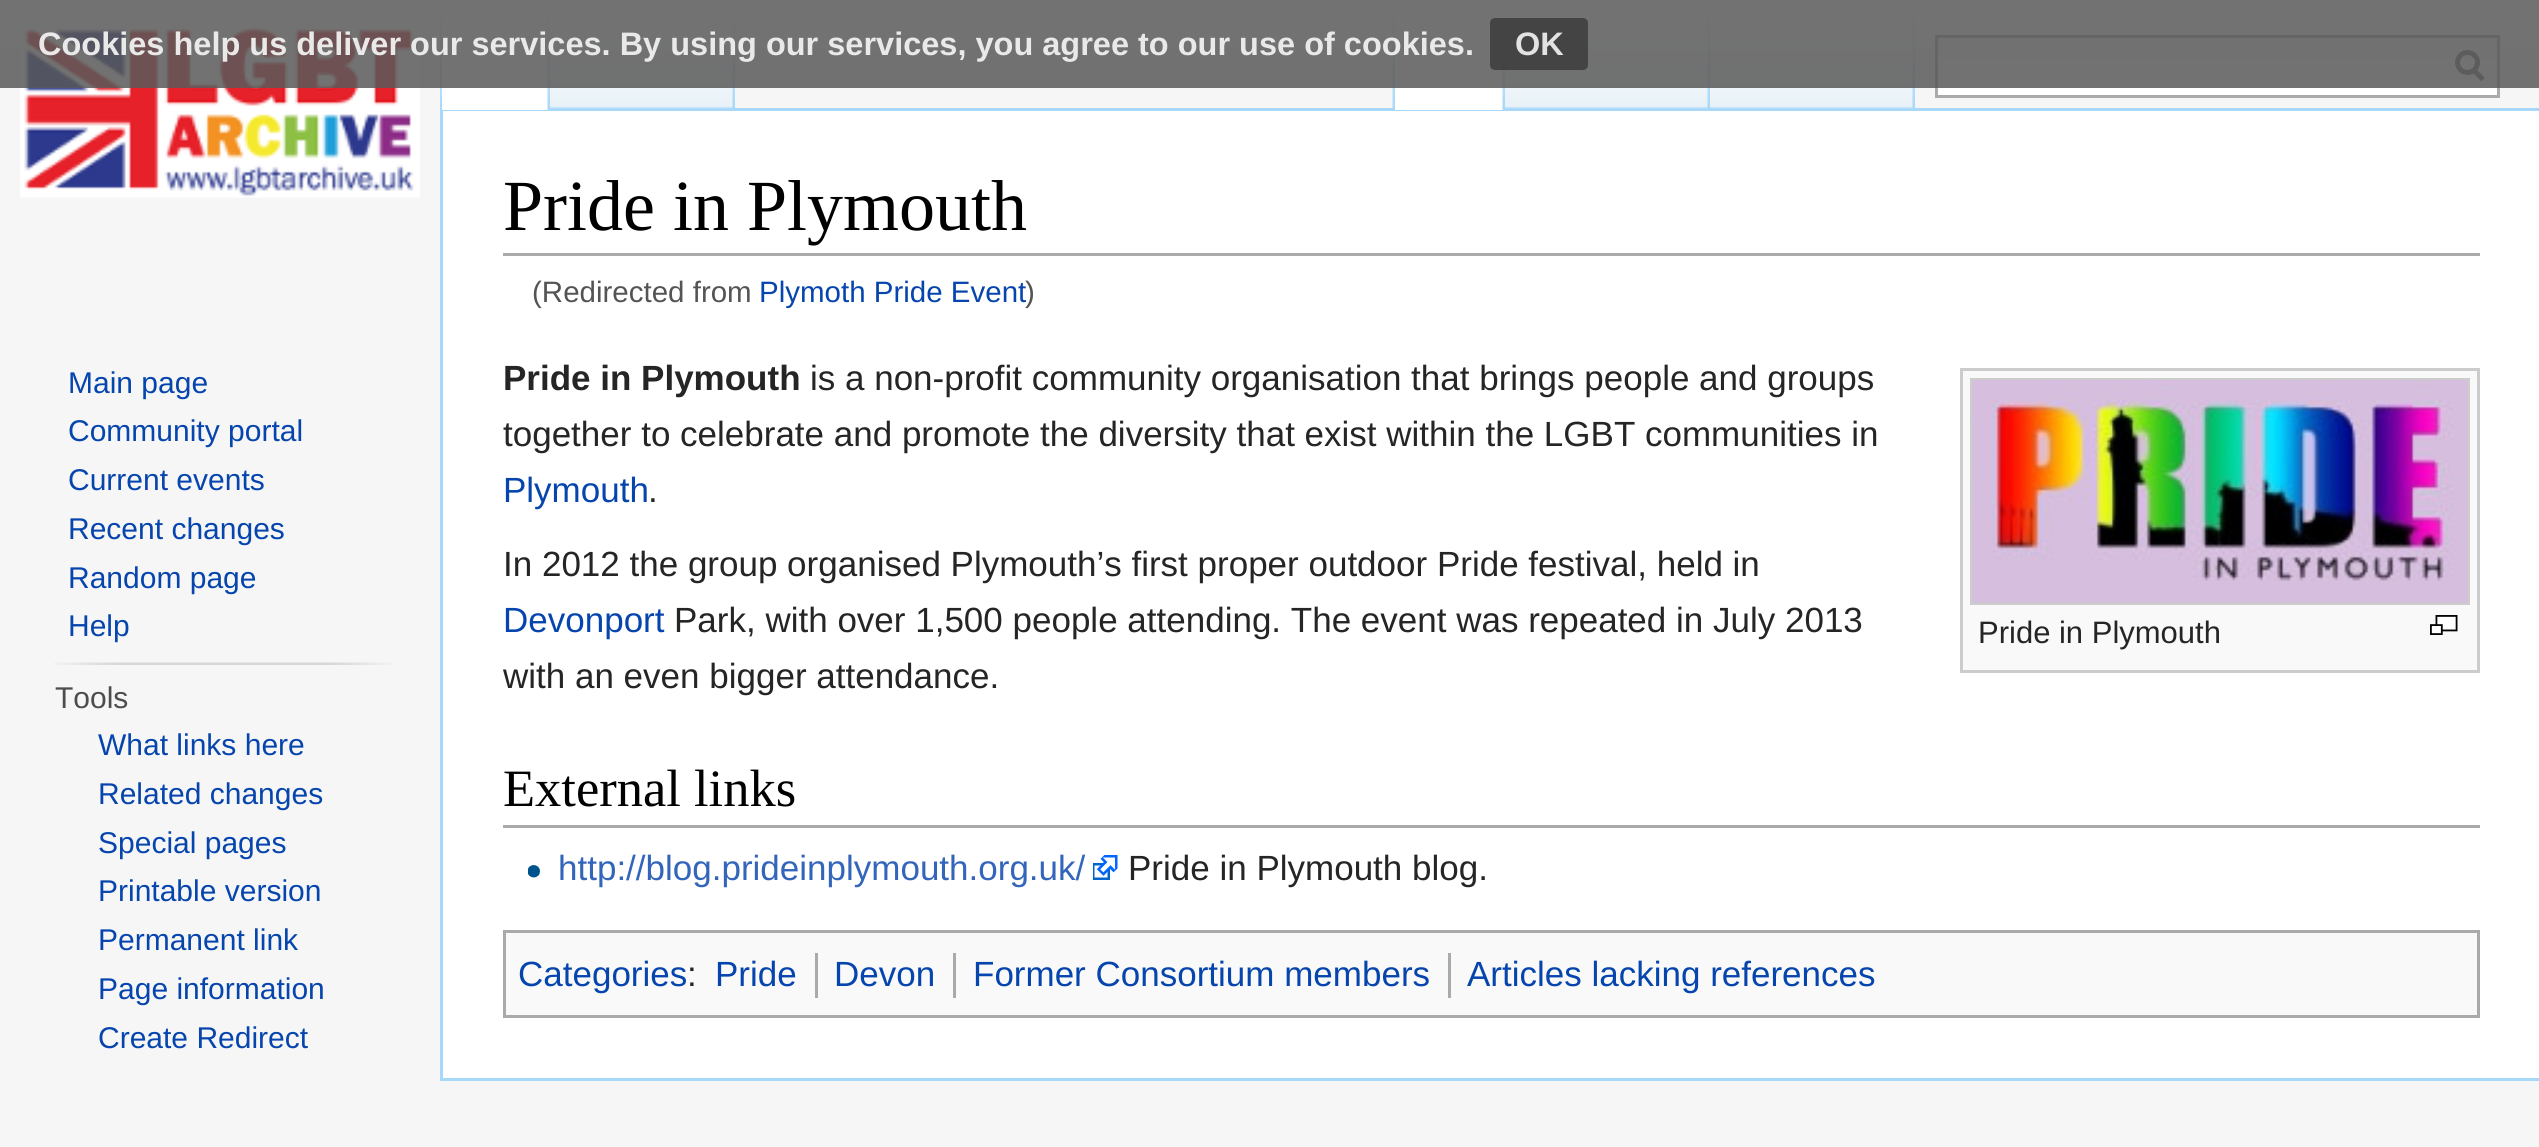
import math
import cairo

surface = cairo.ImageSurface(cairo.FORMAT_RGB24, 2539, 1147)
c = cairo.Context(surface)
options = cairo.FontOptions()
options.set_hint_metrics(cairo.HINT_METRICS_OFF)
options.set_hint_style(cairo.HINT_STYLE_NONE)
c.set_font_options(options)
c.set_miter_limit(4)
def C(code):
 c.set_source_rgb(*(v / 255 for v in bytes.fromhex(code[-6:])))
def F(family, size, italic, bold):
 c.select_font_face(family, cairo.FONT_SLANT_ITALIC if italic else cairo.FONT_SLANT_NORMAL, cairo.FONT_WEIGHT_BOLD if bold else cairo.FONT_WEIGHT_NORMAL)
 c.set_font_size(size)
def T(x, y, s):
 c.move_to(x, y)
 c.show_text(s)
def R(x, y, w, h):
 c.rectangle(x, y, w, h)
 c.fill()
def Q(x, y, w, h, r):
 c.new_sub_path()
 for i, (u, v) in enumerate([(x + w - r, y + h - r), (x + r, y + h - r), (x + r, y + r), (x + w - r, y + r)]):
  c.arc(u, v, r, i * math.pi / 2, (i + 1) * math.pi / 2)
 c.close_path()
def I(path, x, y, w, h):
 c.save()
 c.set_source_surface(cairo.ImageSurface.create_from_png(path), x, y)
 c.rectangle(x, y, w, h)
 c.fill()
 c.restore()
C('f6f6f6')
c.paint()
gradient = cairo.LinearGradient(1270,-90,1270,110)
gradient.add_color_stop_rgba(.5,1,1,1,1)
gradient.add_color_stop_rgba(1,0.965,0.965,0.965,1)
c.set_source(gradient)
R(0,0,2539,82)
I('1.png',440,10,2,98)
C('a7d7f9')
R(440,108,2099,3)
R(440,1078,2099,3)
R(440,108,3,972)
C('ffffff')
R(442,38,108,72)
I('2.png',547,11,3,99)
I('3.png',550,10,185,100)
I('4.png',732,11,3,98)
I('5.png',1392,10,3,98)
R(1395,38,110,72)
I('2.png',1502,11,3,99)
I('6.png',1505,10,205,100)
I('4.png',1707,11,3,98)
I('6.png',1710,10,205,100)
I('4.png',1912,11,3,98)
R(1938,59,559,36)
I('7.png',1938,38,559,21)
c.rectangle(1936.5,36.5,562,60)
C('aaaaaa')
c.set_line_width(3)
c.stroke()
c.new_path()
c.move_to(2483,79.5)
c.line_to(2473,69.5)
C('6c6c6c')
c.set_line_width(5)
c.stroke()
c.arc(2467.5,62.5,10,0,2 * math.pi)
c.stroke()
I('8.png',20,27,400,171)
c.set_source_rgba(0.353,0.353,0.353,0.85)
R(0,0,2539,88)
F('Liberation Sans',32.5,0,1)
C('eae9e9')
T(38,55,'Cookies help us deliver our services. By using our services, you agree to our use of cookies.')
c.set_source_rgba(0.235,0.235,0.235,0.85)
Q(1490,18,98,52,5)
c.fill()
C('e3e3e3')
T(1515,55,'OK')
F('Liberation Sans',30,0,0)
C('0645ad')
T(68,393,'Main page')
T(68,441,'Community portal')
T(68,490,'Current events')
T(68,539,'Recent changes')
T(68,588,'Random page')
T(68,636,'Help')
I('9.png',54,662,339,3)
C('4d4d4d')
T(55,708,'Tools')
C('0645ad')
T(98,755,'What links here')
T(98,804,'Related changes')
T(98,853,'Special pages')
T(98,901,'Printable version')
T(98,950,'Permanent link')
T(98,999,'Page information')
T(98,1048,'Create Redirect')
C('ffffff')
R(443,111,2096,967)
C('aaaaaa')
R(503,253,1977,3)
F('Liberation Serif',72,0,0)
C('000000')
T(503,230,'Pride in Plymouth')
F('Liberation Sans',29.5,0,0)
C('545454')
T(532,302,'(Redirected from')
C('0645ad')
T(759,302,'Plymoth Pride Event')
C('545454')
T(1025,302,')')
F('Liberation Sans',35,0,1)
C('252525')
T(503,390,'Pride in Plymouth')
F('Liberation Sans',35,0,0)
T(810,390,'is a non-profit community organisation that brings people and groups')
T(503,446,'together to celebrate and promote the diversity that exist within the LGBT communities in')
C('0645ad')
T(503,502,'Plymouth')
C('252525')
T(648,502,'.')
T(503,576,'In 2012 the group organised Plymouth’s first proper outdoor Pride festival, held in')
C('0645ad')
T(503,632,'Devonport')
C('252525')
T(674,632,'Park, with over 1,500 people attending. The event was repeated in July 2013')
T(503,688,'with an even bigger attendance.')
C('f9f9f9')
c.rectangle(1961.5,369.5,517,302)
c.fill_preserve()
C('cccccc')
c.set_line_width(3)
c.stroke()
c.rectangle(1971.5,379.5,497,224)
c.stroke()
I('10.png',1972,380,496,223)
F('Liberation Sans',31,0,0)
C('252525')
T(1978,643,'Pride in Plymouth')
I('11.png',2430,615,28,20)
C('aaaaaa')
R(503,825,1977,3)
F('Liberation Serif',52.5,0,0)
C('000000')
T(503,806,'External links')
I('12.png',528,865,12,13)
F('Liberation Sans',35,0,0)
C('3366bb')
T(558,880,'http://blog.prideinplymouth.org.uk/')
I('13.png',1093,855,25,25)
C('252525')
T(1128,880,'Pride in Plymouth blog.')
C('f9f9f9')
c.rectangle(504.5,931.5,1974,85)
c.fill_preserve()
C('aaaaaa')
c.stroke()
C('0645ad')
T(518,986,'Categories')
C('252525')
T(687,986,':')
C('0645ad')
T(715,986,'Pride')
C('aaaaaa')
R(815,953,3,45)
C('0645ad')
T(834,986,'Devon')
C('aaaaaa')
R(953,953,3,45)
C('0645ad')
T(973,986,'Former Consortium members')
C('aaaaaa')
R(1448,953,3,45)
C('0645ad')
T(1467,986,'Articles lacking references')
surface.write_to_png('o.png')
